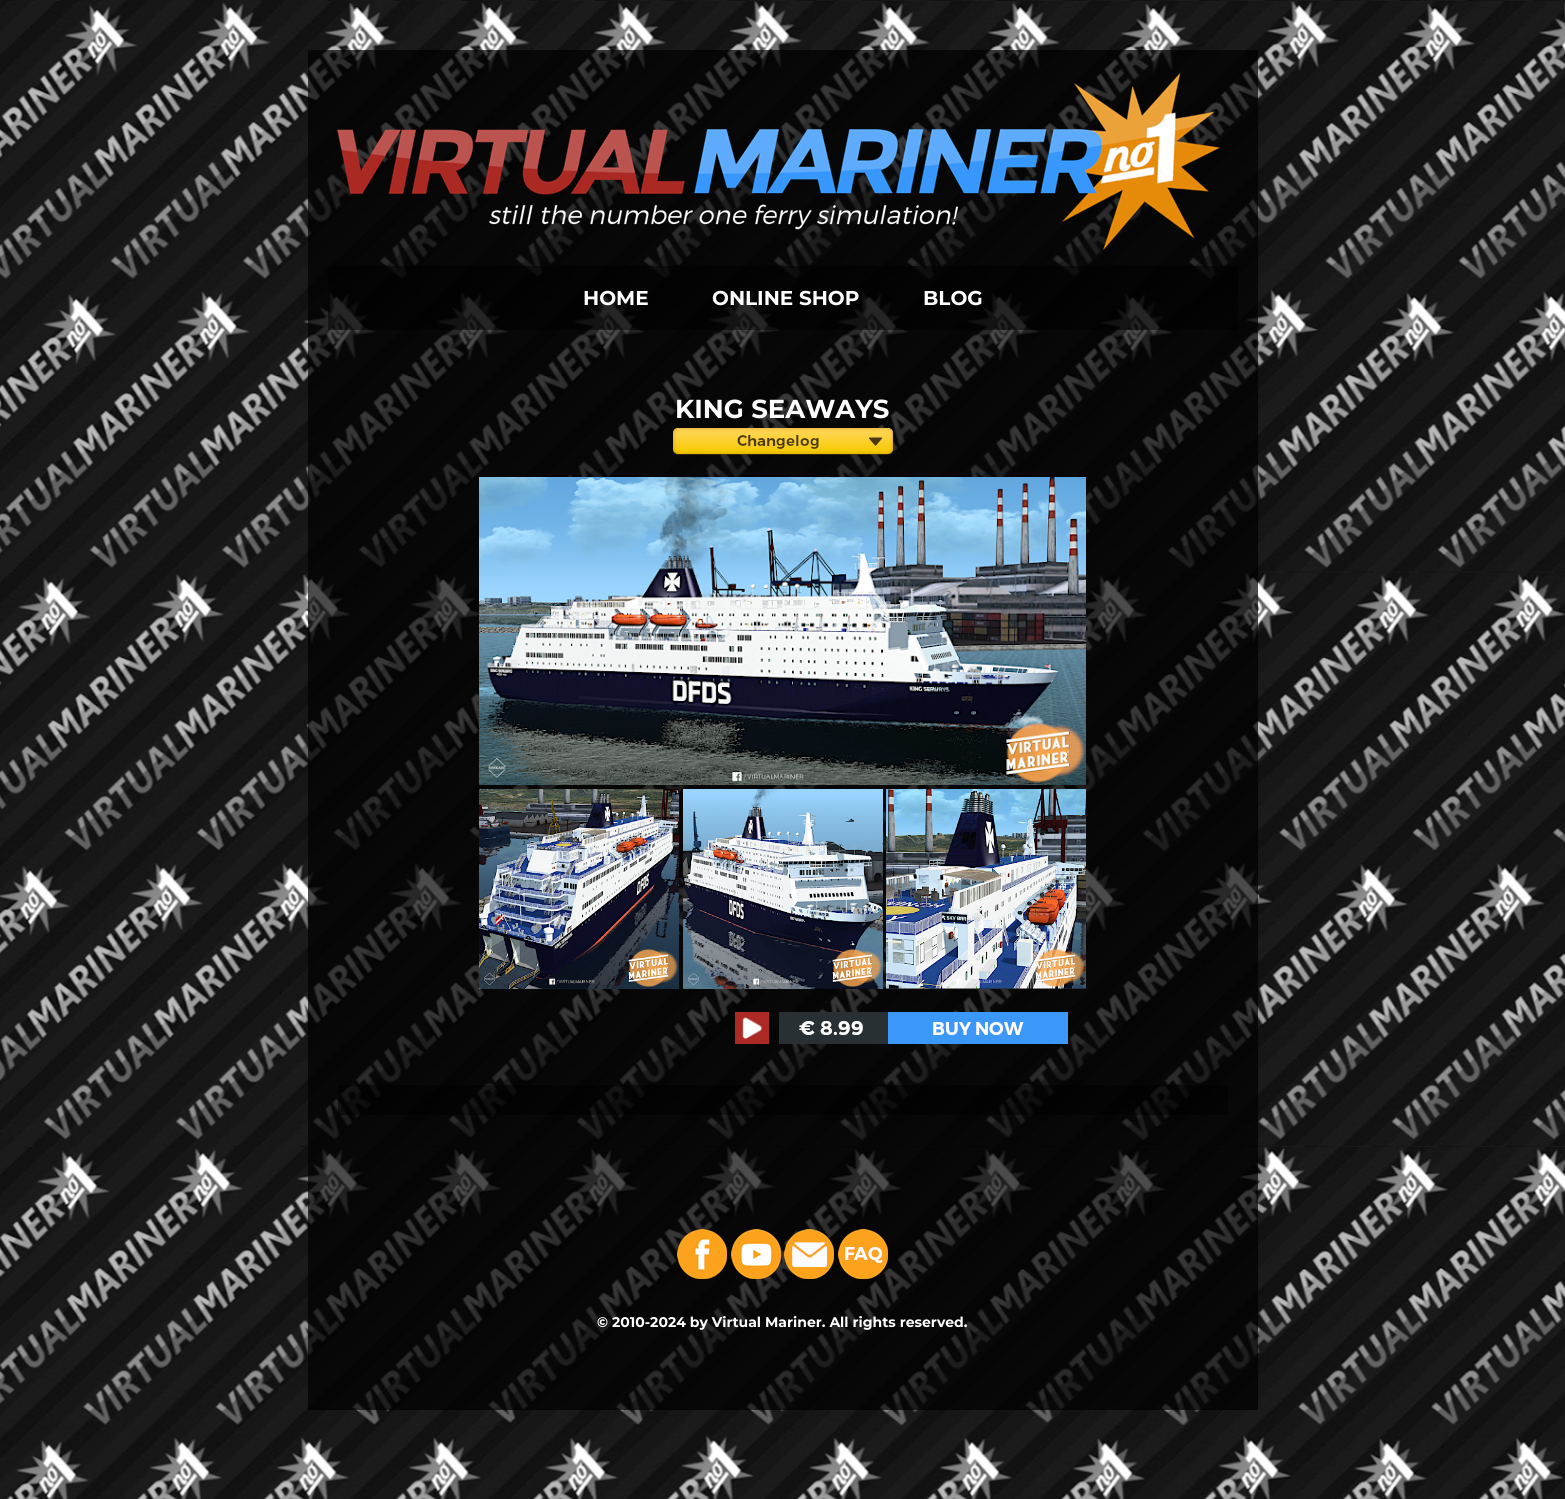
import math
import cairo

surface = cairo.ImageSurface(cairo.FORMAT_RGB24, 1565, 1499)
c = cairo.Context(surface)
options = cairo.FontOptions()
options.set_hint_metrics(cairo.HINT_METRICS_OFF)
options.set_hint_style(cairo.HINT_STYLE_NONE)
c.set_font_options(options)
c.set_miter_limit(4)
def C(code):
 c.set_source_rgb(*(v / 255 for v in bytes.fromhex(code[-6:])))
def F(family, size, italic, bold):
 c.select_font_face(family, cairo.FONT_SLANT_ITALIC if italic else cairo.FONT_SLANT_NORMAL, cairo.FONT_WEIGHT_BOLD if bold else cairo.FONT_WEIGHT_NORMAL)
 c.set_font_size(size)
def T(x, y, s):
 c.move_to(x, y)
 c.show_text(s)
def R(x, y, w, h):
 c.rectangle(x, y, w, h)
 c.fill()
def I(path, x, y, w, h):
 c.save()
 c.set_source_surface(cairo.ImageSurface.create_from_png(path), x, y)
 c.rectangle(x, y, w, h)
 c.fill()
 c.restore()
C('ffffff')
c.paint()
I('1.png',0,0,1565,1499)
c.set_source_rgba(0,0,0,0.7)
R(308,50,950,1360)
I('2.png',337,73,883,177)
c.set_source_rgba(0,0,0,0.5)
R(328,266,910,64)
F('Montserrat',20,0,1)
C('ffffff')
T(583,305,'HOME')
T(712,305,'ONLINE SHOP')
T(923,305,'BLOG')
F('Montserrat',26,0,1)
T(675,418,'KING SEAWAYS')
I('3.png',673,428,220,27)
I('4.png',479,477,607,308)
I('5.png',479,789,200,200)
I('6.png',683,789,200,200)
I('7.png',886,789,200,200)
I('8.png',735,1012,34,32)
I('9.png',779,1012,109,32)
I('10.png',888,1012,180,32)
c.set_source_rgba(0,0,0,0.5)
R(338,1085,890,30)
I('11.png',677,1229,50,50)
I('12.png',731,1229,50,50)
I('13.png',784,1229,50,50)
I('14.png',838,1229,50,50)
F('Montserrat',14,0,1)
C('ffffff')
T(597,1327,'© 2010-2024 by Virtual Mariner. All rights reserved.')
surface.write_to_png('o.png')
